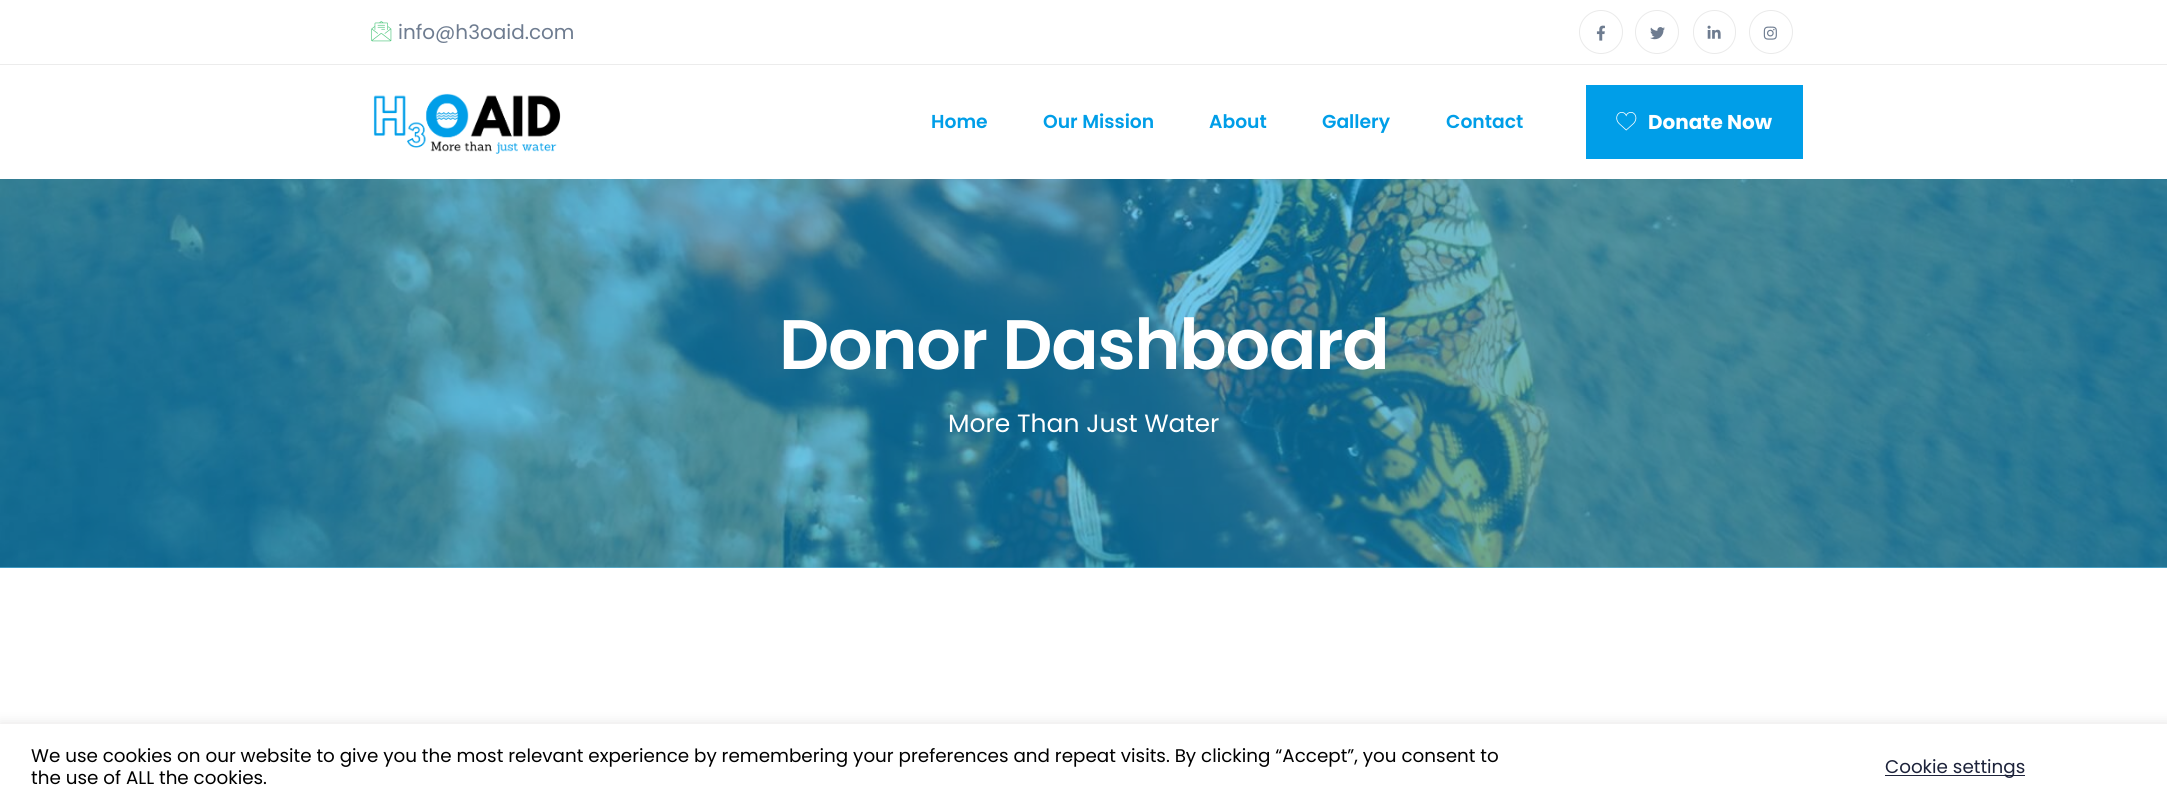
import math
import cairo

surface = cairo.ImageSurface(cairo.FORMAT_RGB24, 2167, 810)
c = cairo.Context(surface)
options = cairo.FontOptions()
options.set_hint_metrics(cairo.HINT_METRICS_OFF)
options.set_hint_style(cairo.HINT_STYLE_NONE)
c.set_font_options(options)
c.set_miter_limit(4)
def C(code):
 c.set_source_rgb(*(v / 255 for v in bytes.fromhex(code[-6:])))
def F(family, size, italic, bold):
 c.select_font_face(family, cairo.FONT_SLANT_ITALIC if italic else cairo.FONT_SLANT_NORMAL, cairo.FONT_WEIGHT_BOLD if bold else cairo.FONT_WEIGHT_NORMAL)
 c.set_font_size(size)
def T(x, y, s):
 c.move_to(x, y)
 c.show_text(s)
def L(x, y, s, letter, word):
 c.move_to(x, y)
 for ch in s:
  c.show_text(ch)
  c.rel_move_to(letter + word * (ch == ' '), 0)
def R(x, y, w, h):
 c.rectangle(x, y, w, h)
 c.fill()
def Q(x, y, w, h, r):
 c.new_sub_path()
 for i, (u, v) in enumerate([(x + w - r, y + h - r), (x + r, y + h - r), (x + r, y + r), (x + w - r, y + r)]):
  c.arc(u, v, r, i * math.pi / 2, (i + 1) * math.pi / 2)
 c.close_path()
def S(x, y, w, h, r, blur, alpha):
 c.push_group_with_content(cairo.CONTENT_ALPHA)
 c.set_operator(cairo.OPERATOR_SOURCE)
 for i in range(15, -16, -2):
  e = blur * i / 6
  if min(w, h) + 2 * e > 0:
   c.set_source_rgba(0, 0, 0, alpha * math.erfc((i - 1) / 8.5) / 2)
   Q(x - e, y - e, w + 2 * e, h + 2 * e, max(0, min(r + e + blur * .6, min(w, h) / 2 + e)))
   c.fill()
 c.mask(c.pop_group())
def I(path, x, y, w, h):
 c.save()
 c.set_source_surface(cairo.ImageSurface.create_from_png(path), x, y)
 c.rectangle(x, y, w, h)
 c.fill()
 c.restore()
C('ffffff')
c.paint()
C('6ec8f2')
R(0,567,2167,1)
C('ececec')
R(0,64,2167,1)
I('1.png',371,21,21,21)
F('Poppins',20,0,0)
C('6e7c90')
T(398,39,'info@h3oaid.com')
c.new_path()
c.arc(1601,32,21.5,0,2 * math.pi)
C('eaeaea')
c.set_line_width(1)
c.stroke()
I('2.png',1596,25,9,16)
c.arc(1657,32,21.5,0,2 * math.pi)
c.stroke()
I('3.png',1650,27,15,13)
Q(1693.5,10.5,42,43,21)
c.stroke()
I('4.png',1707,25,14,14)
c.arc(1771,32,21.5,0,2 * math.pi)
c.stroke()
I('5.png',1763,26,14,14)
I('6.png',373,93,188,61)
F('Poppins SemiBold',18.75,0,0)
C('009ee8')
T(931,128,'Home')
T(1043,128,'Our Mission')
T(1209,128,'About')
T(1322,128,'Gallery')
T(1446,128,'Contact')
R(1586,85,217,74)
I('7.png',1616,112,21,19)
F('Poppins',20,0,1)
C('ffffff')
T(1648,129,'Donate Now')
I('8.png',0,179,2167,389)
F('Poppins SemiBold',70,0,0)
L(779,369,'Donor Dashboard',-1.25,0)
F('Poppins',25,0,0)
T(948,432,'More Than Just Water')
C('acabab')
S(0,723,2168,86,0,6,.3)
C('ffffff')
R(0,724,2167,86)
F('Poppins',18.33,0,0)
C('000000')
T(31,762,'We use cookies on our website to give you the most relevant experience by remembering your preferences and repeat visits. By clicking “Accept”, you consent to')
T(31,784,'the use of ALL the cookies.')
C('1c223a')
R(1885,775,140,1)
T(1885,773,'Cookie settings')
surface.write_to_png('o.png')
